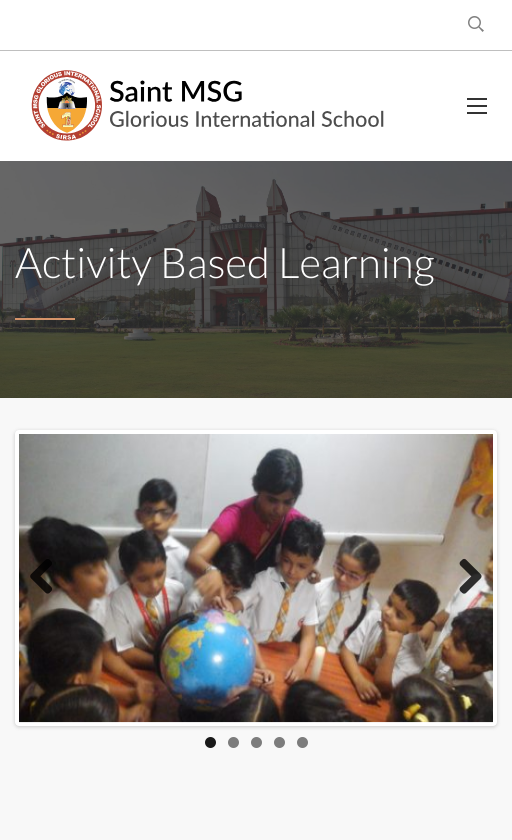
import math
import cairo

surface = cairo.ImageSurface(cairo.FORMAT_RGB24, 512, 840)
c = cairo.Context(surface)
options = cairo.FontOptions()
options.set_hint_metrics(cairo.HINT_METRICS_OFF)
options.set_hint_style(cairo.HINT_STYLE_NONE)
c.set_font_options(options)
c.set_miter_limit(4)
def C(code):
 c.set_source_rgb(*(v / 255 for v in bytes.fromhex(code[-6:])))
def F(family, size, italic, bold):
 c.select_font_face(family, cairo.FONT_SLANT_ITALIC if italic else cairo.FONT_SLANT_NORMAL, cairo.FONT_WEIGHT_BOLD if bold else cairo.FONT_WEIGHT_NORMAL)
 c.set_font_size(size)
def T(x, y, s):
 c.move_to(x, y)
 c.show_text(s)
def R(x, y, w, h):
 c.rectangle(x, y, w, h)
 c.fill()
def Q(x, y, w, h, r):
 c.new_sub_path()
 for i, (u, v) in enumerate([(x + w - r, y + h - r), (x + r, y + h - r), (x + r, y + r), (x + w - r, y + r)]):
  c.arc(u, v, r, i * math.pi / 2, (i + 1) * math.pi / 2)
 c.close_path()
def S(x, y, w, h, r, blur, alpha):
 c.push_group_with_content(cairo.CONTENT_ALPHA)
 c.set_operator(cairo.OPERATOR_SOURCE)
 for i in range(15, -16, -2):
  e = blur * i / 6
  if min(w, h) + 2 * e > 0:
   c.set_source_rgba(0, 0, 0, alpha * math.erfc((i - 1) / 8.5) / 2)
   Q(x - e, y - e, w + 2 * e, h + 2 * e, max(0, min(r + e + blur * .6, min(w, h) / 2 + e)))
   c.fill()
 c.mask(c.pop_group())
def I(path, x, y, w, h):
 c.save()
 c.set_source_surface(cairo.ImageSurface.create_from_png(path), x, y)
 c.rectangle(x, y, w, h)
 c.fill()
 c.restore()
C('f8f8f8')
c.paint()
C('ffffff')
R(0,0,512,50)
C('bfbfbf')
R(0,50,512,1)
I('1.png',468,16,16,16)
C('ffffff')
R(0,51,512,110)
I('2.png',31,70,353,71)
C('333333')
R(467,105,20,2)
R(467,98,20,2)
R(467,112,20,2)
I('3.png',0,161,512,237)
F('Lato Light',42,0,0)
C('ffffff')
T(15,278,'Activity Based Learning')
C('d5946a')
R(15,318,60,2)
C('000000')
S(15,431,482,296,4,2,.2)
Q(17,432,478,292,2)
C('ffffff')
c.set_line_width(4)
c.stroke()
I('4.png',19,434,474,289)
I('5.png',30,559,22,35)
I('6.png',459,558,23,36)
C('191919')
c.arc(210.5,742.5,5.5,0,2 * math.pi)
c.fill()
C('7c7c7c')
c.arc(233.5,742.5,5.5,0,2 * math.pi)
c.fill()
c.arc(256.5,742.5,5.5,0,2 * math.pi)
c.fill()
c.arc(279.5,742.5,5.5,0,2 * math.pi)
c.fill()
c.arc(302.5,742.5,5.5,0,2 * math.pi)
c.fill()
surface.write_to_png('o.png')
